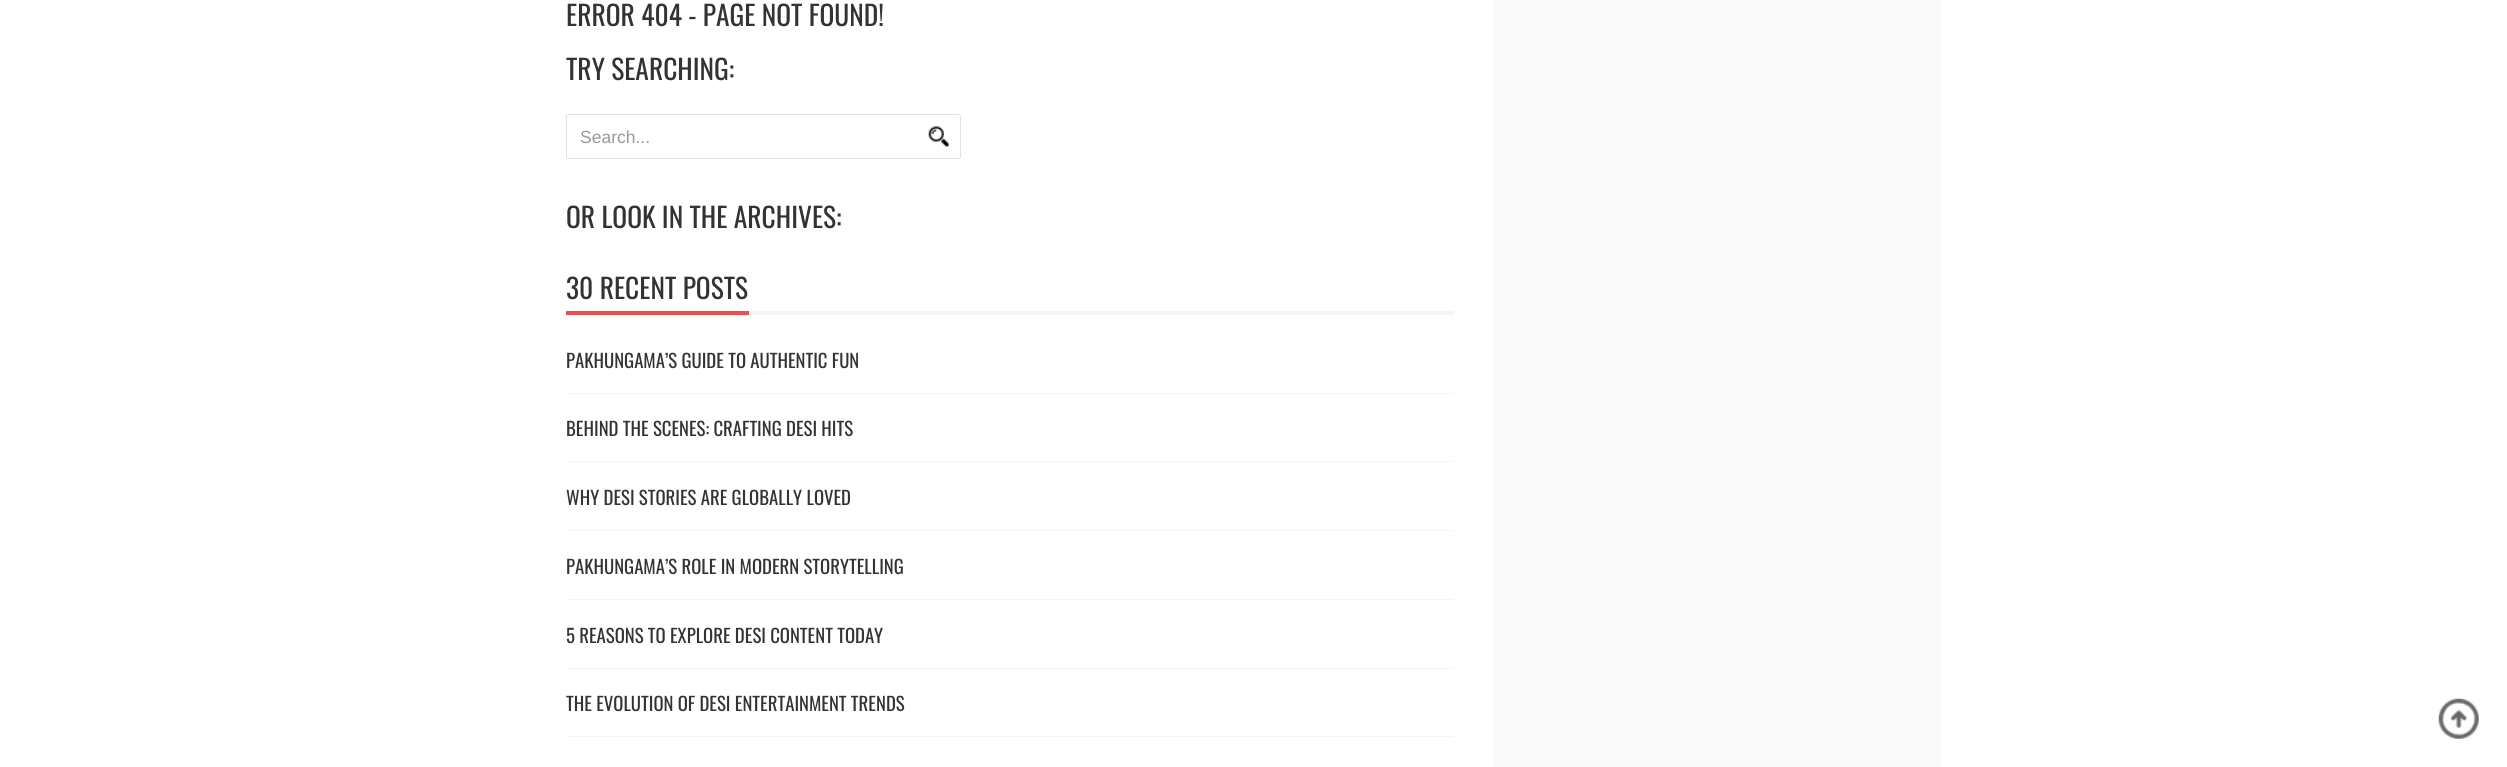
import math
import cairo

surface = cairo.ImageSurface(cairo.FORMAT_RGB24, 2507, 767)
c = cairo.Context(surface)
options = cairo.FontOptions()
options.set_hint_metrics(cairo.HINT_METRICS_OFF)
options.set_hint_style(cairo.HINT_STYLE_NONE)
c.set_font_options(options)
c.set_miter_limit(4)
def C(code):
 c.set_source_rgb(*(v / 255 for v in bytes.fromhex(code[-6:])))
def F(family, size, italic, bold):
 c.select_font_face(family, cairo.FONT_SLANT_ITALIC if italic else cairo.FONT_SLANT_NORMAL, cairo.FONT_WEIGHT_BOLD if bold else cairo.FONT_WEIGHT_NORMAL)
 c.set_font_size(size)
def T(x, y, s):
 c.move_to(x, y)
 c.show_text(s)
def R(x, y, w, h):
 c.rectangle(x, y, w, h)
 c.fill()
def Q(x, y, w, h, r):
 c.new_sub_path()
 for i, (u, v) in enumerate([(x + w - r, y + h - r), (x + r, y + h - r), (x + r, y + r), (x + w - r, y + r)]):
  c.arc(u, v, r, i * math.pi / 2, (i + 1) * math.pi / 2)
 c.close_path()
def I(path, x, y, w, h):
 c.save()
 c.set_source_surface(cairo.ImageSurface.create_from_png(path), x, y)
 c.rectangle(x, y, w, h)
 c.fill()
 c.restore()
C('ffffff')
c.paint()
F('Oswald',27.5,0,0)
C('333333')
T(566,26,'ERROR 404 - PAGE NOT FOUND!')
T(566,80,'TRY SEARCHING:')
I('1.png',928,126,21,21)
Q(566.5,114.5,394,44,2)
C('e1e1e1')
c.set_line_width(1)
c.stroke()
F('Liberation Sans',17.5,0,0)
C('999999')
T(580,143,'Search...')
F('Oswald',27.5,0,0)
C('333333')
T(566,228,'OR LOOK IN THE ARCHIVES:')
C('f5f5f5')
R(749,311,704,4)
C('f14d4d')
R(566,311,183,4)
C('333333')
T(566,299,'30 RECENT POSTS')
C('f5f5f5')
R(566,393,887,1)
F('Oswald',18.75,0,0)
C('333333')
T(566,368,'PAKHUNGAMA’S GUIDE TO AUTHENTIC FUN')
C('f5f5f5')
R(566,461,887,1)
C('333333')
T(566,436,'BEHIND THE SCENES: CRAFTING DESI HITS')
C('f5f5f5')
R(566,530,887,1)
C('333333')
T(566,505,'WHY DESI STORIES ARE GLOBALLY LOVED')
C('f5f5f5')
R(566,599,887,1)
C('333333')
T(566,574,'PAKHUNGAMA’S ROLE IN MODERN STORYTELLING')
C('f5f5f5')
R(566,668,887,1)
C('333333')
T(566,643,'5 REASONS TO EXPLORE DESI CONTENT TODAY')
C('f5f5f5')
R(566,736,887,1)
C('333333')
T(566,711,'THE EVOLUTION OF DESI ENTERTAINMENT TRENDS')
C('f9f9f9')
R(1494,0,447,767)
I('2.png',2438,698,41,41)
surface.write_to_png('o.png')
